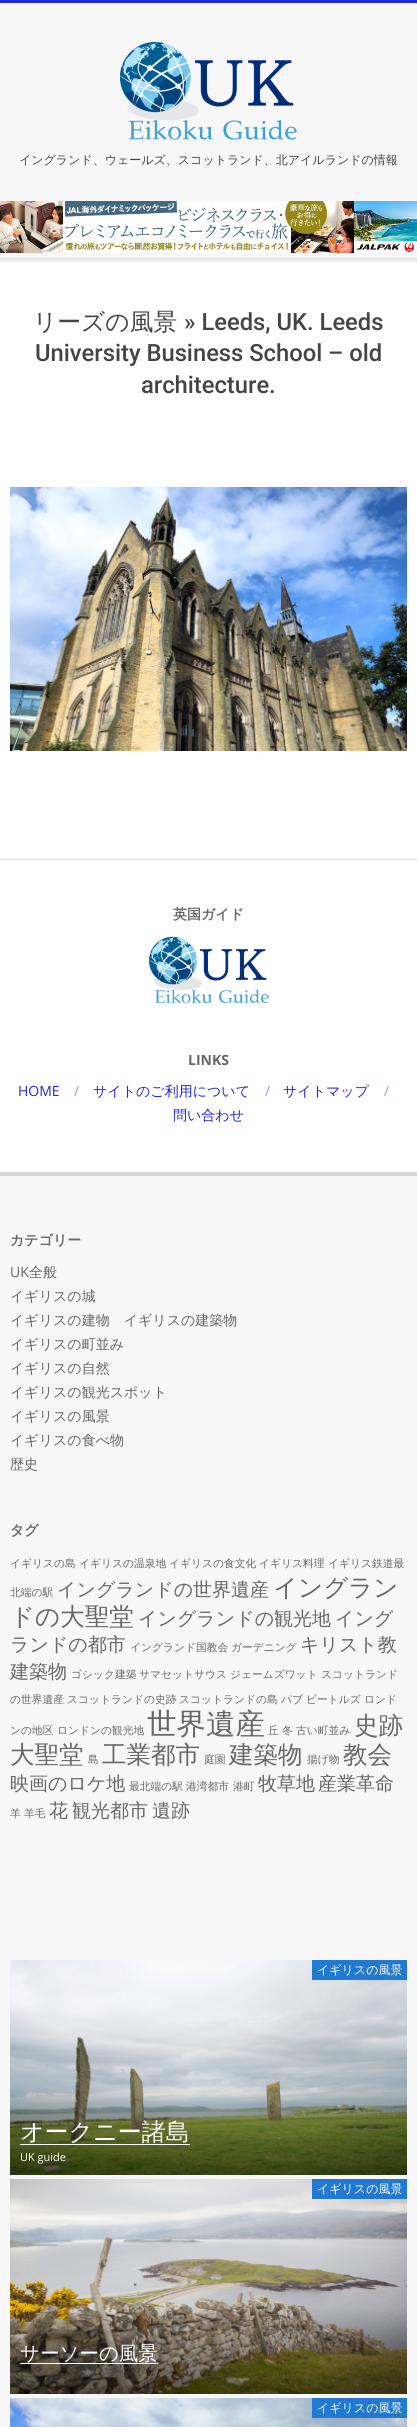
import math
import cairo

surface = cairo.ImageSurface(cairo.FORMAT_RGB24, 417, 2427)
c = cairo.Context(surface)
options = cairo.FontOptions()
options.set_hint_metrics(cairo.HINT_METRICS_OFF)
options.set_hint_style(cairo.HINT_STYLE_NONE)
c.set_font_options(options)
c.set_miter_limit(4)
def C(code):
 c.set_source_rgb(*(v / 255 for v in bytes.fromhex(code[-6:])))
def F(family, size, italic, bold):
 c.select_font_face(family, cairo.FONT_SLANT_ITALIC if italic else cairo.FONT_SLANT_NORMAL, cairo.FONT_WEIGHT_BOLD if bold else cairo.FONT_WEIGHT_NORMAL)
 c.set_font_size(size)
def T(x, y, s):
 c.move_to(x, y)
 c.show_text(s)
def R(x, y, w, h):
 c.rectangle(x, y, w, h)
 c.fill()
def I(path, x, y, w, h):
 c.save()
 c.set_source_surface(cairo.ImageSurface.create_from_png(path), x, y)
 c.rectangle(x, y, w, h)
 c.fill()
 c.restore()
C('f7f7f7')
c.paint()
C('2228d8')
R(0,0,417,3)
C('dddddd')
R(0,258,417,1)
I('1.png',120,42,177,98)
F('WenQuanYi Zen Hei Medium',12,0,0)
C('444444')
T(19,164,'イングランド、ウェールズ、スコットランド、北アイルランドの情報')
I('2.png',0,201,417,52)
C('eeeeee')
R(0,259,417,3)
C('ffffff')
R(0,262,417,597)
F('WenQuanYi Zen Hei Medium',23.75,0,0)
C('444444')
T(33,330,'リーズの風景')
F('Roboto Medium',23.75,0,0)
T(184,330,'» Leeds, UK. Leeds')
T(35,361,'University Business School – old')
T(141,393,'architecture.')
I('3.png',10,487,397,264)
C('ffffff')
R(0,860,417,312)
C('dddddd')
R(0,859,417,1)
F('WenQuanYi Zen Hei',14,0,1)
C('666666')
T(173,919,'英国ガイド')
I('4.png',149,936,120,68)
F('Open Sans',14,0,1)
T(188,1065,'LINKS')
F('Open Sans',14,0,0)
C('2228d8')
T(18,1096,'HOME')
C('9194ec')
T(74,1096,'/')
F('WenQuanYi Zen Hei Medium',14,0,0)
C('2228d8')
T(93,1096,'サイトのご利用について')
F('Open Sans',14,0,0)
C('9194ec')
T(265,1096,'/')
F('WenQuanYi Zen Hei Medium',14,0,0)
C('2228d8')
T(283,1096,'サイトマップ')
F('Open Sans',14,0,0)
C('9194ec')
T(384,1096,'/')
F('WenQuanYi Zen Hei Medium',14,0,0)
C('2228d8')
T(173,1120,'問い合わせ')
C('d7d7d7')
R(0,1172,417,4)
F('WenQuanYi Zen Hei',14,0,1)
C('666666')
T(10,1245,'カテゴリー')
F('Open Sans',14,0,0)
T(10,1277,'UK')
F('WenQuanYi Zen Hei Medium',14,0,0)
T(29,1277,'全般')
T(10,1301,'イギリスの城')
T(10,1325,'イギリスの建物　イギリスの建築物')
T(10,1349,'イギリスの町並み')
T(10,1373,'イギリスの自然')
T(10,1397,'イギリスの観光スポット')
T(10,1421,'イギリスの風景')
T(10,1445,'イギリスの食べ物')
T(10,1469,'歴史')
F('WenQuanYi Zen Hei',14,0,1)
T(10,1535,'タグ')
F('WenQuanYi Zen Hei Medium',10.75,0,0)
T(10,1567,'イギリスの島')
T(79,1567,'イギリスの温泉地')
T(169,1567,'イギリスの食文化')
T(259,1567,'イギリス料理')
T(328,1567,'イギリス鉄道最')
T(10,1596,'北端の駅')
F('WenQuanYi Zen Hei Medium',19,0,0)
T(57,1596,'イングランドの世界遺産')
F('WenQuanYi Zen Hei Medium',24.5,0,0)
T(273,1596,'イングラン')
T(10,1625,'ドの大聖堂')
F('WenQuanYi Zen Hei Medium',19,0,0)
T(138,1625,'イングランドの観光地')
T(335,1625,'イング')
T(10,1651,'ランドの都市')
F('WenQuanYi Zen Hei Medium',10.75,0,0)
T(130,1651,'イングランド国教会')
T(231,1651,'ガーデニング')
F('WenQuanYi Zen Hei Medium',19,0,0)
T(300,1651,'キリスト教')
T(10,1678,'建築物')
F('WenQuanYi Zen Hei Medium',10.75,0,0)
T(71,1678,'ゴシック建築')
T(139,1678,'サマセットサウス')
T(230,1678,'ジェームズワット')
T(321,1678,'スコットランド')
T(10,1703,'の世界遺産')
T(67,1703,'スコットランドの史跡')
T(179,1703,'スコットランドの島')
T(281,1703,'パブ')
T(306,1703,'ビートルズ')
T(364,1703,'ロンド')
T(10,1734,'ンの地区')
T(57,1734,'ロンドンの観光地')
F('WenQuanYi Zen Hei Medium',29.5,0,0)
T(147,1734,'世界遺産')
F('WenQuanYi Zen Hei Medium',10.75,0,0)
T(268,1734,'丘')
T(282,1734,'冬')
T(296,1734,'古い町並み')
F('WenQuanYi Zen Hei Medium',24.5,0,0)
T(354,1734,'史跡')
T(10,1763,'大聖堂')
F('WenQuanYi Zen Hei Medium',10.75,0,0)
T(88,1763,'島')
F('WenQuanYi Zen Hei Medium',24.5,0,0)
T(102,1763,'工業都市')
F('WenQuanYi Zen Hei Medium',10.75,0,0)
T(204,1763,'庭園')
F('WenQuanYi Zen Hei Medium',24.5,0,0)
T(229,1763,'建築物')
F('WenQuanYi Zen Hei Medium',10.75,0,0)
T(307,1763,'揚げ物')
F('WenQuanYi Zen Hei Medium',24.5,0,0)
T(343,1763,'教会')
F('WenQuanYi Zen Hei Medium',19,0,0)
T(10,1790,'映画のロケ地')
F('WenQuanYi Zen Hei Medium',10.75,0,0)
T(129,1790,'最北端の駅')
T(186,1790,'港湾都市')
T(233,1790,'港町')
F('WenQuanYi Zen Hei Medium',19,0,0)
T(258,1790,'牧草地')
T(318,1790,'産業革命')
F('WenQuanYi Zen Hei Medium',10.75,0,0)
T(10,1817,'羊')
T(24,1817,'羊毛')
F('WenQuanYi Zen Hei Medium',19,0,0)
T(49,1817,'花')
T(72,1817,'観光都市')
T(152,1817,'遺跡')
I('5.png',10,1960,397,215)
C('2279d2')
R(312,1960,95,20)
F('WenQuanYi Zen Hei Medium',12,0,0)
C('ffffff')
T(317,1974,'イギリスの風景')
R(20,2144,170,1)
F('WenQuanYi Zen Hei Medium',24,0,0)
T(20,2140,'オークニー諸島')
F('Open Sans',11,0,0)
T(20,2161,'UK guide')
I('6.png',10,2179,397,215)
C('2279d2')
R(312,2179,95,20)
F('WenQuanYi Zen Hei Medium',12,0,0)
C('ffffff')
T(317,2193,'イギリスの風景')
R(20,2363,138,1)
F('WenQuanYi Zen Hei Medium',19.5,0,0)
T(20,2360,'サーソーの風景')
I('7.png',10,2398,397,29)
C('2279d2')
R(312,2398,95,20)
F('WenQuanYi Zen Hei Medium',12,0,0)
C('ffffff')
T(317,2412,'イギリスの風景')
surface.write_to_png('o.png')
